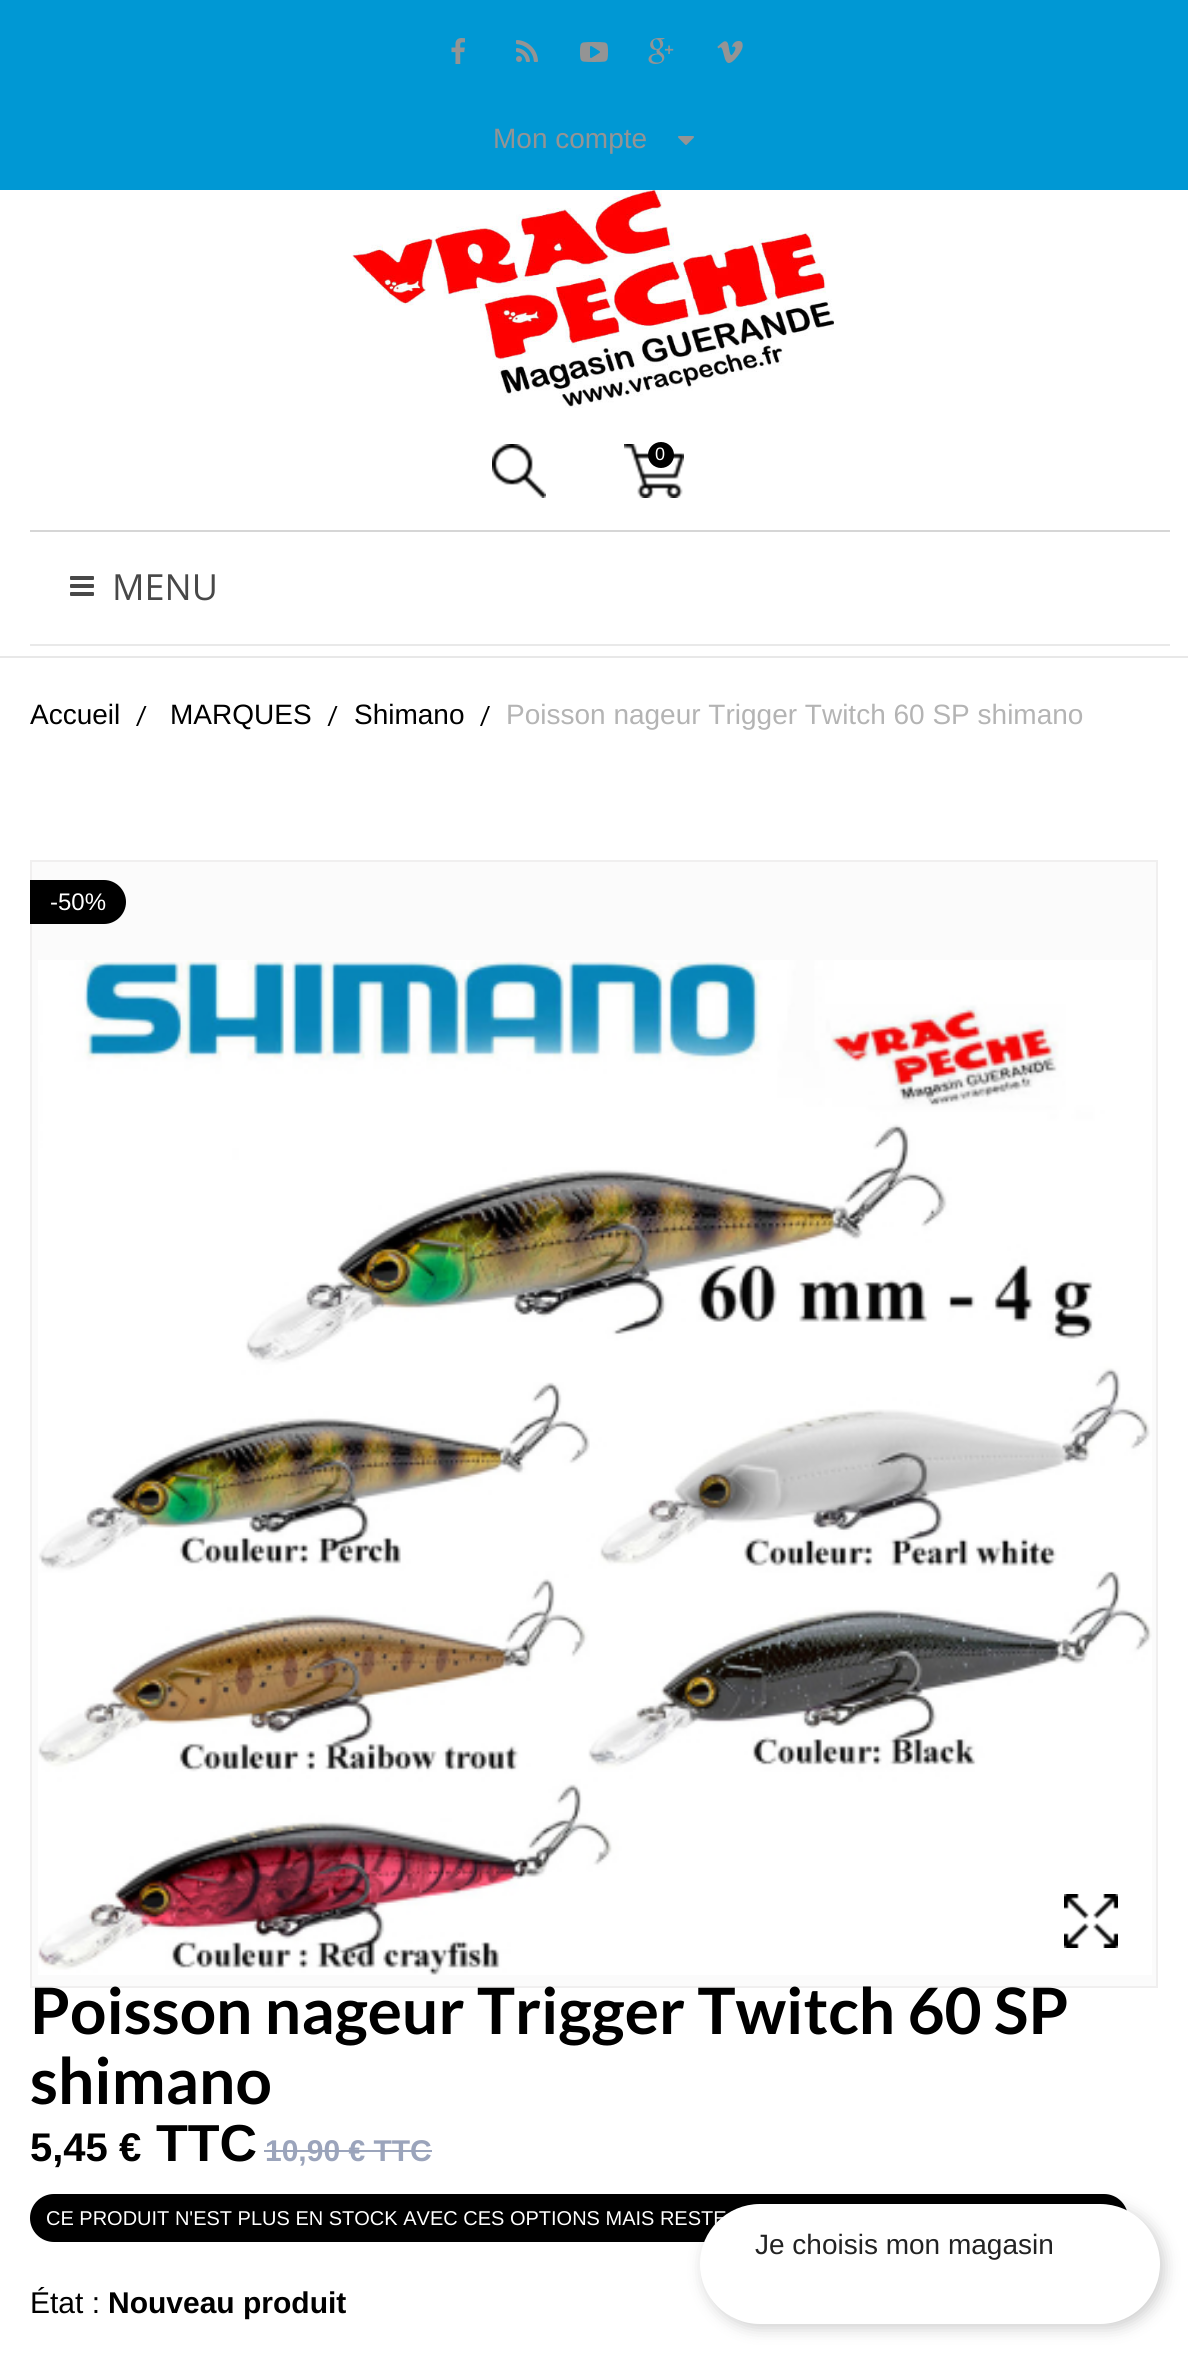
import math
import cairo

surface = cairo.ImageSurface(cairo.FORMAT_RGB24, 1188, 2353)
c = cairo.Context(surface)
options = cairo.FontOptions()
options.set_hint_metrics(cairo.HINT_METRICS_OFF)
options.set_hint_style(cairo.HINT_STYLE_NONE)
c.set_font_options(options)
c.set_miter_limit(4)
def C(code):
 c.set_source_rgb(*(v / 255 for v in bytes.fromhex(code[-6:])))
def F(family, size, italic, bold):
 c.select_font_face(family, cairo.FONT_SLANT_ITALIC if italic else cairo.FONT_SLANT_NORMAL, cairo.FONT_WEIGHT_BOLD if bold else cairo.FONT_WEIGHT_NORMAL)
 c.set_font_size(size)
def T(x, y, s):
 c.move_to(x, y)
 c.show_text(s)
def R(x, y, w, h):
 c.rectangle(x, y, w, h)
 c.fill()
def Q(x, y, w, h, r):
 c.new_sub_path()
 for i, (u, v) in enumerate([(x + w - r, y + h - r), (x + r, y + h - r), (x + r, y + r), (x + w - r, y + r)]):
  c.arc(u, v, r, i * math.pi / 2, (i + 1) * math.pi / 2)
 c.close_path()
def S(x, y, w, h, r, blur, alpha):
 c.push_group_with_content(cairo.CONTENT_ALPHA)
 c.set_operator(cairo.OPERATOR_SOURCE)
 for i in range(15, -16, -2):
  e = blur * i / 6
  if min(w, h) + 2 * e > 0:
   c.set_source_rgba(0, 0, 0, alpha * math.erfc((i - 1) / 8.5) / 2)
   Q(x - e, y - e, w + 2 * e, h + 2 * e, max(0, min(r + e + blur * .6, min(w, h) / 2 + e)))
   c.fill()
 c.mask(c.pop_group())
def I(path, x, y, w, h):
 c.save()
 c.set_source_surface(cairo.ImageSurface.create_from_png(path), x, y)
 c.rectangle(x, y, w, h)
 c.fill()
 c.restore()
C('ffffff')
c.paint()
C('e8e8e8')
R(0,656,1188,2)
C('0098d4')
R(0,0,1188,190)
I('1.png',451,38,14,26)
I('2.png',516,40,22,22)
I('3.png',580,42,28,20)
I('4.png',648,38,26,26)
I('5.png',717,41,26,22)
F('Liberation Sans',28,0,0)
C('949494')
T(493,148,'Mon compte')
I('6.png',678,136,16,9)
I('7.png',352,190,482,218)
I('8.png',492,444,54,54)
I('9.png',624,444,60,54)
C('000000')
c.arc(661,455,13,0,2 * math.pi)
c.fill()
F('Liberation Sans',18,0,0)
C('ffffff')
T(655,460,'0')
C('d6d6d6')
R(30,530,1140,2)
C('e9e9e9')
R(30,644,1140,2)
I('10.png',70,576,24,20)
F('Open Sans',36,0,0)
C('484848')
T(112,600,'MENU')
F('Liberation Sans',28,0,0)
C('000000')
T(30,724,'Accueil')
c.new_path()
c.move_to(144.5,706)
c.line_to(146.5,706)
c.line_to(138,726)
c.line_to(136,726)
c.close_path()
c.fill()
T(170,724,'MARQUES')
c.new_path()
c.move_to(335.5,706)
c.line_to(337.5,706)
c.line_to(329.5,726)
c.line_to(327.5,726)
c.close_path()
c.fill()
T(354,724,'Shimano')
c.new_path()
c.move_to(488,706)
c.line_to(490,706)
c.line_to(482,726)
c.line_to(480,726)
c.close_path()
c.fill()
C('b4b4b4')
T(506,724,'Poisson nageur Trigger Twitch 60 SP shimano')
C('fbfbfb')
c.rectangle(31,861,1126,1126)
c.fill_preserve()
C('f0efef')
c.stroke()
I('11.png',38,960,1114,1015)
I('12.png',1064,1894,54,54)
C('000000')
c.new_path()
c.move_to(30,880)
c.line_to(104,880)
c.curve_to(116,880,126,890,126,902)
c.curve_to(126,914,116,924,104,924)
c.line_to(30,924)
c.close_path()
c.fill()
F('Liberation Sans',24,0,0)
C('ffffff')
T(50,910,'-50%')
F('Lato',64,0,1)
C('000000')
T(30,2034,'Poisson nageur Trigger Twitch 60 SP')
T(30,2104,'shimano')
F('Liberation Sans',40,0,1)
T(30,2161,'5,45 €')
F('Liberation Sans',52,0,1)
T(156,2161,'TTC')
F('Liberation Sans',30,0,1)
C('9ba4bb')
T(265,2161,'10,90 € TTC')
R(264,2150,168,2)
C('000000')
Q(30,2194,1098,48,24)
c.fill()
F('Liberation Sans',20,0,0)
C('ffffff')
T(46,2225,'CE PRODUIT N\'EST PLUS EN STOCK AVEC CES OPTIONS MAIS RESTE')
F('Liberation Sans',30,0,0)
C('000000')
T(30,2313,'État :')
F('Liberation Sans',30,0,1)
T(108,2313,'Nouveau produit')
C('000000')
S(704,2208,460,120,60,8,.2)
C('ffffff')
Q(700,2204,460,120,60)
c.fill()
F('Liberation Sans',28,0,0)
C('232323')
T(755,2254,'Je choisis mon magasin')
surface.write_to_png('o.png')
